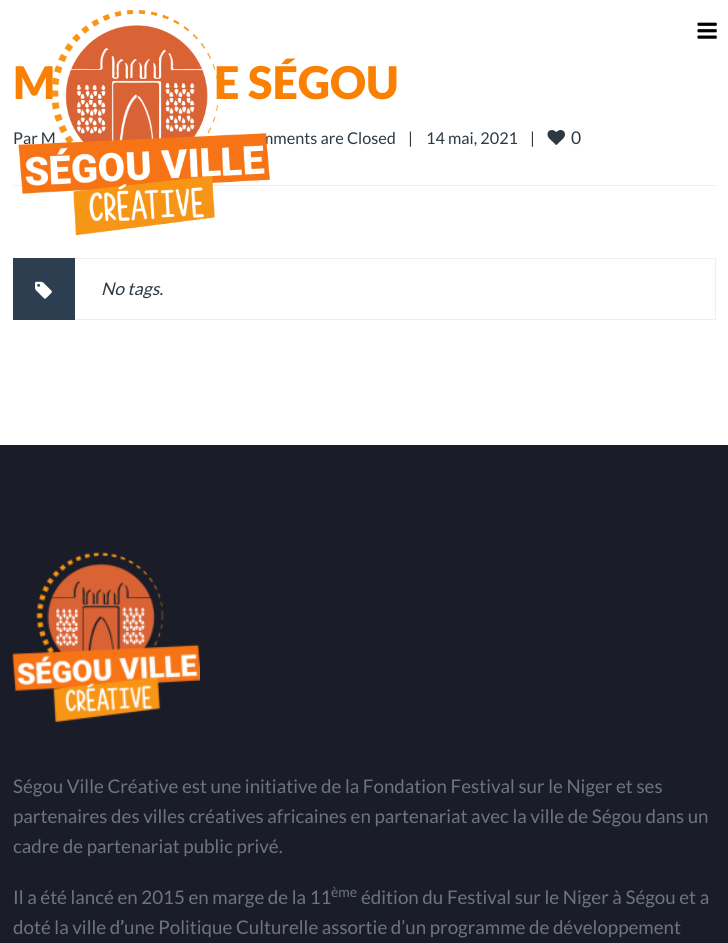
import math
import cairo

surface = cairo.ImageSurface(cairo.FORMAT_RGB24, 728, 943)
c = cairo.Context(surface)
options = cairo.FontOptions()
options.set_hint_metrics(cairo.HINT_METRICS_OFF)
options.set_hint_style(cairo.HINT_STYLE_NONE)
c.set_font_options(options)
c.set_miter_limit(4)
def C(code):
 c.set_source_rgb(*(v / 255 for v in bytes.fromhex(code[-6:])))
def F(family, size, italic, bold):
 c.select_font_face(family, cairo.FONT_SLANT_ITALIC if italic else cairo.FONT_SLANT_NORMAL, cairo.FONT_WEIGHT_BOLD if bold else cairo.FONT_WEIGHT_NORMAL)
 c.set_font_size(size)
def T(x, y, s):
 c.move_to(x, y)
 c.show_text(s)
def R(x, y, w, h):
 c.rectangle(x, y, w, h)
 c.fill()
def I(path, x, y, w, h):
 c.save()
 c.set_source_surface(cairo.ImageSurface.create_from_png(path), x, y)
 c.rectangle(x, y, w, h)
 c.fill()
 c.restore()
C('ffffff')
c.paint()
F('Lato Black',45,0,0)
C('f98000')
T(13,99,'M')
T(214,99,'E SÉGOU')
C('ecf0f1')
R(13,185,703,1)
F('Lato',16.25,0,0)
C('2c3943')
T(13,144,'Par M')
T(260,144,'mments are Closed')
I('1.png',18,10,252,226)
I('2.png',697,22,20,17)
T(408,144,'|')
T(426,144,'14 mai, 2021')
T(530,144,'|')
I('3.png',547,130,18,15)
F('Lato',17.5,0,0)
T(571,144,'0')
c.rectangle(13.5,258.5,702,61)
C('eceef0')
c.set_line_width(1)
c.stroke()
C('2c3e50')
R(13,258,62,62)
I('4.png',35,281,17,18)
F('Lato',17.5,1,0)
C('2c3943')
T(101,295,'No tags.')
C('1a1c27')
R(0,445,728,498)
I('5.png',12,552,188,171)
F('Lato',18.75,0,0)
C('6b757f')
T(13,793,'Ségou Ville Créative est une initiative de la Fondation Festival sur le Niger et ses')
T(13,823,'partenaires des villes créatives africaines en partenariat avec la ville de Ségou dans un')
T(13,853,'cadre de partenariat public privé.')
T(13,904,'Il a été lancé en 2015 en marge de la 11')
F('Lato',14,0,0)
T(331,897,'ème')
F('Lato',18.75,0,0)
T(361,904,'édition du Festival sur le Niger à Ségou et a')
T(13,934,'doté la ville d')
F('Lato',18.75,0,1)
T(120,934,'’')
F('Lato',18.75,0,0)
T(124,934,'une Politique Culturelle assortie d’un programme de développement')
surface.write_to_png('o.png')
